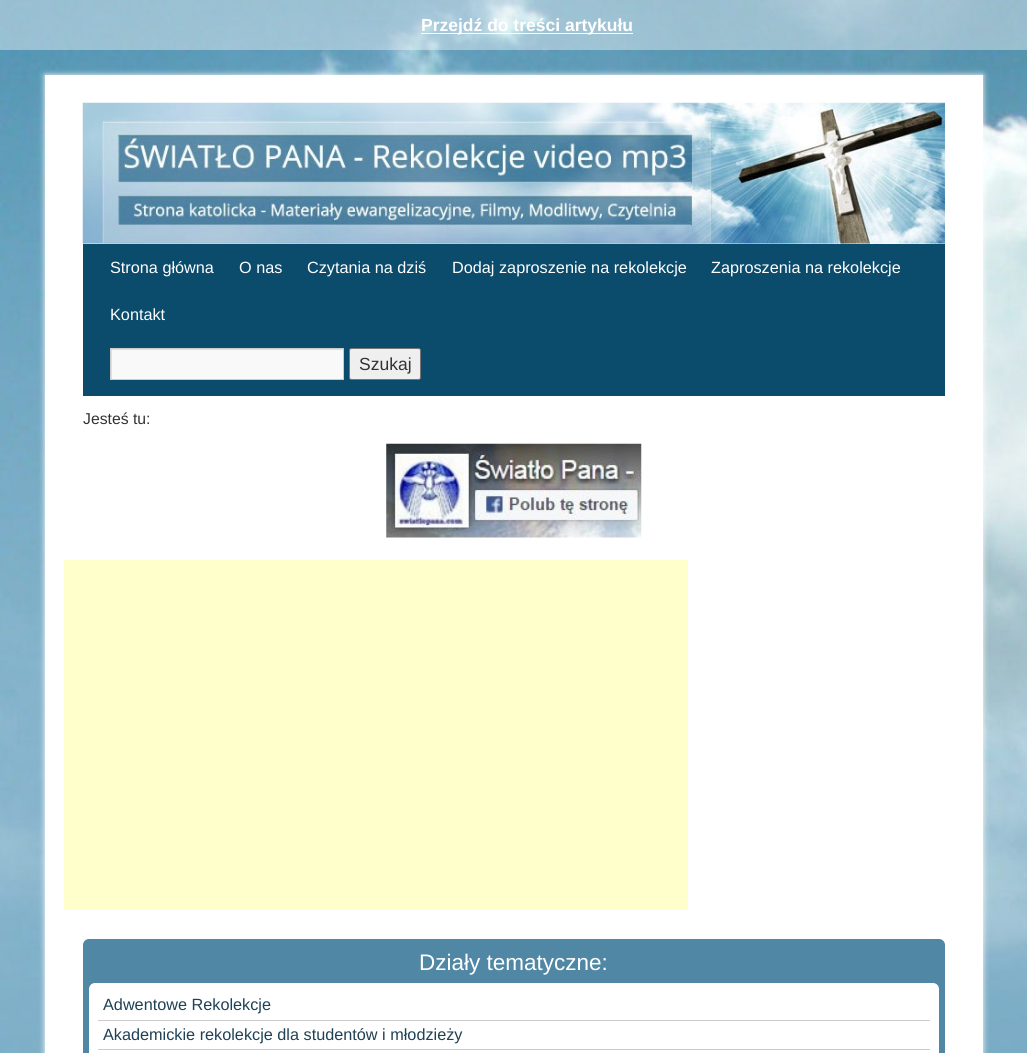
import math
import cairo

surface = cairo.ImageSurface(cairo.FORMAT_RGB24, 1027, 1053)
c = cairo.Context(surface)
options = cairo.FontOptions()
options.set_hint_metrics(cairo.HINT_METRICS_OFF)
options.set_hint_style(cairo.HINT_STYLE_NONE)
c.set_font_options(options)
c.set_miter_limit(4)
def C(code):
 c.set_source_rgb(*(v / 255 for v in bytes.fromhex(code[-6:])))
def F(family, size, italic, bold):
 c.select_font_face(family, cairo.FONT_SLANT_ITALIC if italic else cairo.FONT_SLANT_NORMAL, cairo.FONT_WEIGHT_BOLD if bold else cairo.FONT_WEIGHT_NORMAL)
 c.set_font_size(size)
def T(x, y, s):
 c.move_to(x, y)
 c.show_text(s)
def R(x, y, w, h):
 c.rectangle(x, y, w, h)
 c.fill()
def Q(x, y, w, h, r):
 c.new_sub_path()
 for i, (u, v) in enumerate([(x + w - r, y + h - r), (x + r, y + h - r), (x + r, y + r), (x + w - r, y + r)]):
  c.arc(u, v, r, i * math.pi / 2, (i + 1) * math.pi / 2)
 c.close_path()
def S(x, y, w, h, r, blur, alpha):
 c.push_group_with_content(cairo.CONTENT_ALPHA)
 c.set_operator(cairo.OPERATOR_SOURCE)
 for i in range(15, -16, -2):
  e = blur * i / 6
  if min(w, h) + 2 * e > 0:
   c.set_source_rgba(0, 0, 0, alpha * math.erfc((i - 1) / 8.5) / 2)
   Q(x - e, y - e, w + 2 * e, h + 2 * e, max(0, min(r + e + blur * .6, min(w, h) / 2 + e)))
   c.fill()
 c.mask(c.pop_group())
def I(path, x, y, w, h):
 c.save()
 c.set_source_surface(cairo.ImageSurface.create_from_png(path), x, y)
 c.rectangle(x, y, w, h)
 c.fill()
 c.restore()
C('ffffff')
c.paint()
I('1.png',0,0,1027,1053)
c.set_source_rgba(1,1,1,0.4)
R(0,0,1027,50)
C('ffffff')
R(421,33,212,1)
F('Liberation Sans',17.5,0,1)
T(421,31,'Przejdź do treści artykułu')
C('ffffff')
S(45,75,938,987,0,3,1)
C('ffffff')
R(45,75,938,978)
I('2.png',82,102,863,142)
C('0b4b6c')
R(83,244,862,152)
F('Liberation Sans',16.25,0,0)
C('ffffff')
T(110,273,'Strona główna')
T(239,273,'O nas')
T(307,273,'Czytania na dziś')
T(452,273,'Dodaj zaproszenie na rekolekcje')
T(711,273,'Zaproszenia na rekolekcje')
T(110,320,'Kontakt')
C('f9f9f9')
R(112,350,231,29)
c.save()
c.rectangle(111,349,232,30)
c.clip()
C('e0e0e0')
c.set_fill_rule(cairo.FILL_RULE_EVEN_ODD)
c.new_path()
c.move_to(-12,225)
c.line_to(466,225)
c.line_to(466,502)
c.line_to(-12,502)
c.close_path()
c.move_to(112,350)
c.line_to(344,350)
c.line_to(344,380)
c.line_to(112,380)
c.close_path()
c.fill()
c.restore()
c.rectangle(110.5,348.5,233,31)
C('cccccc')
c.set_line_width(1)
c.stroke()
C('efefef')
Q(349.5,348.5,71,31,2)
c.fill_preserve()
C('767676')
c.stroke()
F('Liberation Sans',17.5,0,0)
C('333333')
T(359,370,'Szukaj')
F('Liberation Sans',15.75,0,0)
T(83,424,'Jesteś tu:')
I('3.png',386,443,256,95)
C('ffffcc')
R(64,560,624,350)
C('5087a4')
Q(83,939,862,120,6)
c.fill()
F('Liberation Sans',22.5,0,0)
C('ffffff')
T(419,970,'Działy tematyczne:')
Q(89,983,850,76,6)
c.fill()
C('cccccc')
R(98,1020,832,1)
F('Liberation Sans',16.25,0,0)
C('1e4155')
T(103,1010,'Adwentowe Rekolekcje')
C('cccccc')
R(98,1049,832,1)
C('1e4155')
T(103,1040,'Akademickie rekolekcje dla studentów i młodzieży')
surface.write_to_png('o.png')
